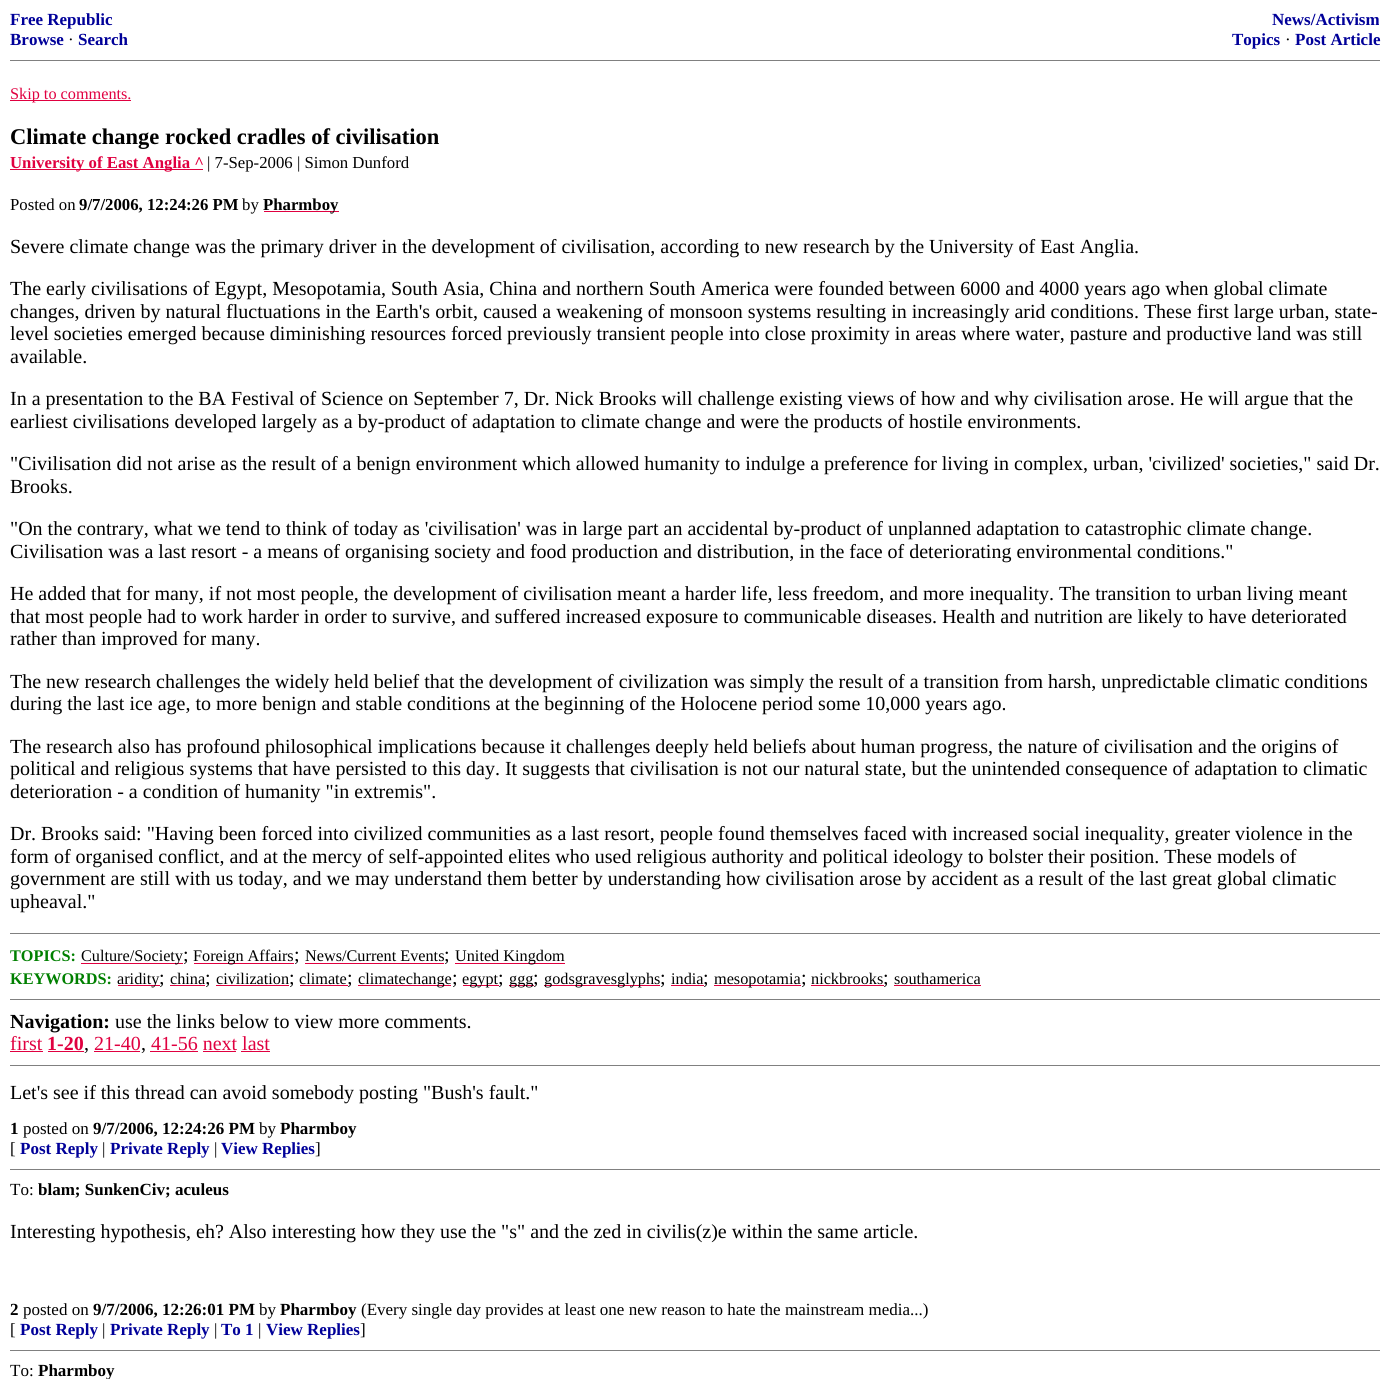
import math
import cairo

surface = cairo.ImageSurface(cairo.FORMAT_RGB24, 1389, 1379)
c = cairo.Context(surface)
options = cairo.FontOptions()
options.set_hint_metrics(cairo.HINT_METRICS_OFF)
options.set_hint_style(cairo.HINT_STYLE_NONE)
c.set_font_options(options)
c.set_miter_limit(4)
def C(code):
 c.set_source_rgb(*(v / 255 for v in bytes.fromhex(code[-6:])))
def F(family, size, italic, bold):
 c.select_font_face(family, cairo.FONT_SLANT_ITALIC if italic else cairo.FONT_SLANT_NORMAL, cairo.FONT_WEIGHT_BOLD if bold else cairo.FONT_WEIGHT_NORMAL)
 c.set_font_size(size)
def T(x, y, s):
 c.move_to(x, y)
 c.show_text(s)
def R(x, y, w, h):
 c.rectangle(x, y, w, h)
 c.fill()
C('ffffff')
c.paint()
F('Liberation Serif',17,0,1)
C('000099')
T(10,25,'Free Republic')
T(10,45,'Browse')
F('Liberation Serif',17,0,0)
C('000000')
T(68,45,'·')
F('Liberation Serif',17,0,1)
C('000099')
T(78,45,'Search')
T(1272,25,'News/Activism')
T(1232,45,'Topics')
F('Liberation Serif',17,0,0)
C('000000')
T(1285,45,'·')
F('Liberation Serif',17,0,1)
C('000099')
T(1295,45,'Post Article')
C('808080')
R(10,60,1370,1)
C('e00040')
R(10,100,121,1)
F('Liberation Serif',16.25,0,0)
T(10,99,'Skip to comments.')
F('Liberation Serif',22.5,0,1)
C('000000')
T(10,144,'Climate change rocked cradles of civilisation')
C('e00040')
R(10,169,193,1)
F('Liberation Serif',16.75,0,1)
T(10,168,'University of East Anglia ^')
F('Liberation Serif',16.75,0,0)
C('000000')
T(207,168,'| 7-Sep-2006 | Simon Dunford')
T(10,210,'Posted on')
F('Liberation Serif',16.75,0,1)
T(79,210,'9/7/2006, 12:24:26 PM')
F('Liberation Serif',16.75,0,0)
T(242,210,'by')
C('e00040')
R(264,211,75,1)
F('Liberation Serif',16.75,0,1)
C('000000')
T(263,210,'Pharmboy')
F('Liberation Serif',20,0,0)
T(10,253,'Severe climate change was the primary driver in the development of civilisation, according to new research by the University of East Anglia.')
T(10,295,'The early civilisations of Egypt, Mesopotamia, South Asia, China and northern South America were founded between 6000 and 4000 years ago when global climate')
T(10,318,'changes, driven by natural fluctuations in the Earth\'s orbit, caused a weakening of monsoon systems resulting in increasingly arid conditions. These first large urban, state-')
T(10,340,'level societies emerged because diminishing resources forced previously transient people into close proximity in areas where water, pasture and productive land was still')
T(10,363,'available.')
T(10,405,'In a presentation to the BA Festival of Science on September 7, Dr. Nick Brooks will challenge existing views of how and why civilisation arose. He will argue that the')
T(10,428,'earliest civilisations developed largely as a by-product of adaptation to climate change and were the products of hostile environments.')
T(10,470,'"Civilisation did not arise as the result of a benign environment which allowed humanity to indulge a preference for living in complex, urban, \'civilized\' societies," said Dr.')
T(10,493,'Brooks.')
T(10,535,'"On the contrary, what we tend to think of today as \'civilisation\' was in large part an accidental by-product of unplanned adaptation to catastrophic climate change.')
T(10,558,'Civilisation was a last resort - a means of organising society and food production and distribution, in the face of deteriorating environmental conditions."')
T(10,600,'He added that for many, if not most people, the development of civilisation meant a harder life, less freedom, and more inequality. The transition to urban living meant')
T(10,623,'that most people had to work harder in order to survive, and suffered increased exposure to communicable diseases. Health and nutrition are likely to have deteriorated')
T(10,645,'rather than improved for many.')
T(10,688,'The new research challenges the widely held belief that the development of civilization was simply the result of a transition from harsh, unpredictable climatic conditions')
T(10,710,'during the last ice age, to more benign and stable conditions at the beginning of the Holocene period some 10,000 years ago.')
T(10,753,'The research also has profound philosophical implications because it challenges deeply held beliefs about human progress, the nature of civilisation and the origins of')
T(10,775,'political and religious systems that have persisted to this day. It suggests that civilisation is not our natural state, but the unintended consequence of adaptation to climatic')
T(10,798,'deterioration - a condition of humanity "in extremis".')
T(10,840,'Dr. Brooks said: "Having been forced into civilized communities as a last resort, people found themselves faced with increased social inequality, greater violence in the')
T(10,863,'form of organised conflict, and at the mercy of self-appointed elites who used religious authority and political ideology to bolster their position. These models of')
T(10,885,'government are still with us today, and we may understand them better by understanding how civilisation arose by accident as a result of the last great global climatic')
T(10,908,'upheaval."')
C('808080')
R(10,933,1370,1)
F('Liberation Serif',16.25,0,1)
C('008000')
T(10,961,'TOPICS:')
C('e00040')
R(81,963,102,1)
F('Liberation Serif',16.25,0,0)
C('000000')
T(81,961,'Culture/Society')
F('Liberation Serif',20,0,0)
T(183,961,';')
C('e00040')
R(194,963,100,1)
F('Liberation Serif',16.25,0,0)
C('000000')
T(193,961,'Foreign Affairs')
F('Liberation Serif',20,0,0)
T(294,961,';')
F('Liberation Serif',16.25,0,0)
T(305,961,'News/Current Events')
C('e00040')
R(305,963,139,1)
F('Liberation Serif',20,0,0)
C('000000')
T(444,961,';')
C('e00040')
R(455,963,110,1)
F('Liberation Serif',16.25,0,0)
C('000000')
T(455,961,'United Kingdom')
F('Liberation Serif',16.25,0,1)
C('008000')
T(10,984,'KEYWORDS:')
C('e00040')
R(118,985,42,1)
F('Liberation Serif',16.25,0,0)
C('000000')
T(117,984,'aridity')
F('Liberation Serif',20,0,0)
T(159,984,';')
F('Liberation Serif',16.25,0,0)
T(170,984,'china')
C('e00040')
R(170,985,35,1)
F('Liberation Serif',20,0,0)
C('000000')
T(205,984,';')
F('Liberation Serif',16.25,0,0)
T(216,984,'civilization')
C('e00040')
R(216,985,73,1)
F('Liberation Serif',20,0,0)
C('000000')
T(289,984,';')
F('Liberation Serif',16.25,0,0)
T(299,984,'climate')
C('e00040')
R(300,985,48,1)
F('Liberation Serif',20,0,0)
C('000000')
T(347,984,';')
C('e00040')
R(358,985,93,1)
F('Liberation Serif',16.25,0,0)
C('000000')
T(358,984,'climatechange')
F('Liberation Serif',20,0,0)
T(452,984,';')
C('e00040')
R(463,985,36,1)
F('Liberation Serif',16.25,0,0)
C('000000')
T(462,984,'egypt')
F('Liberation Serif',20,0,0)
T(498,984,';')
C('e00040')
R(509,985,25,1)
F('Liberation Serif',16.25,0,0)
C('000000')
T(509,984,'ggg')
F('Liberation Serif',20,0,0)
T(533,984,';')
C('e00040')
R(544,985,116,1)
F('Liberation Serif',16.25,0,0)
C('000000')
T(544,984,'godsgravesglyphs')
F('Liberation Serif',20,0,0)
T(660,984,';')
F('Liberation Serif',16.25,0,0)
T(671,984,'india')
C('e00040')
R(671,985,33,1)
F('Liberation Serif',20,0,0)
C('000000')
T(703,984,';')
C('e00040')
R(714,985,87,1)
F('Liberation Serif',16.25,0,0)
C('000000')
T(714,984,'mesopotamia')
F('Liberation Serif',20,0,0)
T(801,984,';')
F('Liberation Serif',16.25,0,0)
T(811,984,'nickbrooks')
C('e00040')
R(811,985,73,1)
F('Liberation Serif',20,0,0)
C('000000')
T(883,984,';')
F('Liberation Serif',16.25,0,0)
T(894,984,'southamerica')
C('e00040')
R(894,985,87,1)
C('808080')
R(10,999,1370,1)
F('Liberation Serif',20,0,1)
C('000000')
T(10,1028,'Navigation:')
F('Liberation Serif',20,0,0)
T(115,1028,'use the links below to view more comments.')
C('e00040')
T(10,1050,'first')
R(10,1051,33,1)
F('Liberation Serif',20,0,1)
T(47,1050,'1-20')
R(48,1051,36,1)
F('Liberation Serif',20,0,0)
C('000000')
T(84,1050,',')
C('e00040')
T(94,1050,'21-40')
R(94,1051,46,1)
C('000000')
T(141,1050,',')
C('e00040')
T(151,1050,'41-56 next last')
R(150,1051,48,1)
R(203,1051,33,1)
R(241,1051,29,1)
C('808080')
R(10,1065,1370,1)
C('000000')
T(10,1099,'Let\'s see if this thread can avoid somebody posting "Bush\'s fault."')
F('Liberation Serif',17,0,1)
T(10,1134,'1')
F('Liberation Serif',17,0,0)
T(23,1134,'posted on')
F('Liberation Serif',17,0,1)
T(93,1134,'9/7/2006, 12:24:26 PM')
F('Liberation Serif',17,0,0)
T(259,1134,'by')
F('Liberation Serif',17,0,1)
T(280,1134,'Pharmboy')
F('Liberation Serif',17,0,0)
T(10,1154,'[')
F('Liberation Serif',17,0,1)
C('000099')
T(20,1154,'Post Reply')
F('Liberation Serif',17,0,0)
C('000000')
T(102,1154,'|')
F('Liberation Serif',17,0,1)
C('000099')
T(110,1154,'Private Reply')
F('Liberation Serif',17,0,0)
C('000000')
T(214,1154,'|')
F('Liberation Serif',17,0,1)
C('000099')
T(221,1154,'View Replies')
F('Liberation Serif',17,0,0)
C('000000')
T(315,1154,']')
C('808080')
R(10,1169,1370,1)
C('000000')
T(10,1195,'To:')
F('Liberation Serif',17,0,1)
T(38,1195,'blam; SunkenCiv; aculeus')
F('Liberation Serif',20,0,0)
T(10,1238,'Interesting hypothesis, eh? Also interesting how they use the "s" and the zed in civilis(z)e within the same article.')
F('Liberation Serif',17,0,1)
T(10,1315,'2')
F('Liberation Serif',17,0,0)
T(23,1315,'posted on')
F('Liberation Serif',17,0,1)
T(93,1315,'9/7/2006, 12:26:01 PM')
F('Liberation Serif',17,0,0)
T(259,1315,'by')
F('Liberation Serif',17,0,1)
T(280,1315,'Pharmboy')
F('Liberation Serif',17,0,0)
T(361,1315,'(Every single day provides at least one new reason to hate the mainstream media...)')
T(10,1335,'[')
F('Liberation Serif',17,0,1)
C('000099')
T(20,1335,'Post Reply')
F('Liberation Serif',17,0,0)
C('000000')
T(102,1335,'|')
F('Liberation Serif',17,0,1)
C('000099')
T(110,1335,'Private Reply')
F('Liberation Serif',17,0,0)
C('000000')
T(214,1335,'|')
F('Liberation Serif',17,0,1)
C('000099')
T(221,1335,'To 1')
F('Liberation Serif',17,0,0)
C('000000')
T(258,1335,'|')
F('Liberation Serif',17,0,1)
C('000099')
T(266,1335,'View Replies')
F('Liberation Serif',17,0,0)
C('000000')
T(360,1335,']')
C('808080')
R(10,1350,1370,1)
C('000000')
T(10,1376,'To:')
F('Liberation Serif',17,0,1)
T(38,1376,'Pharmboy')
surface.write_to_png('o.png')
